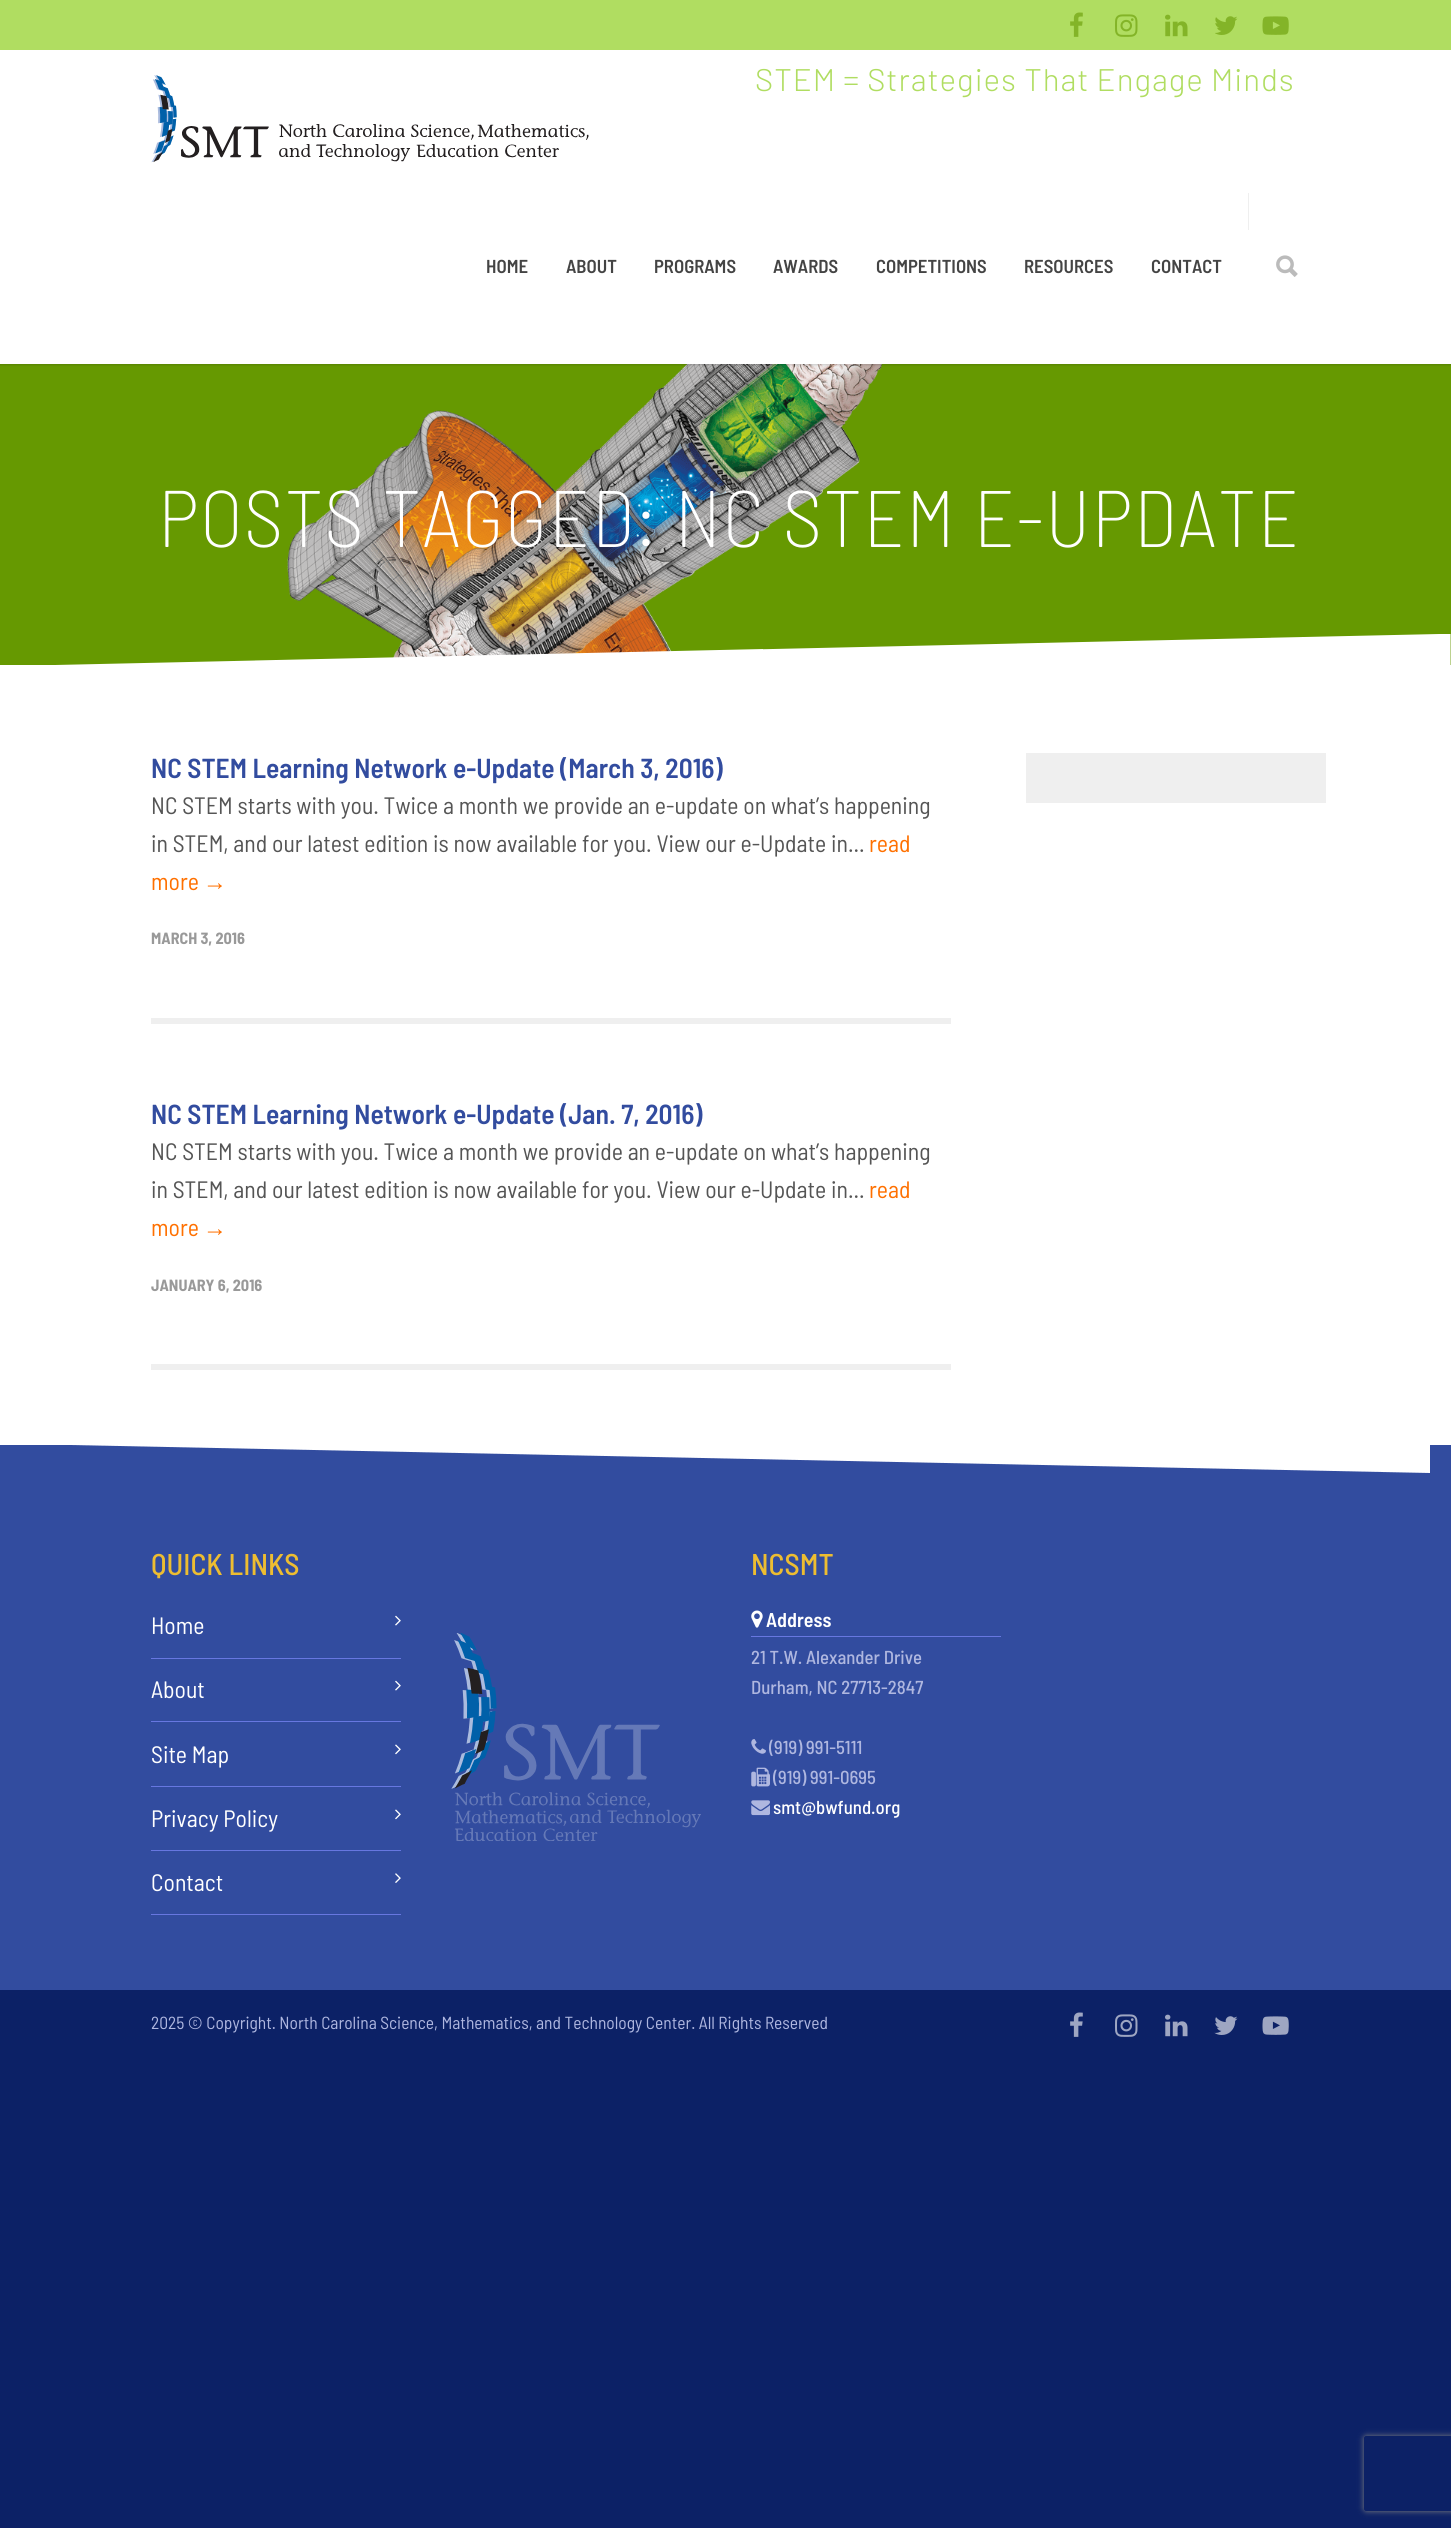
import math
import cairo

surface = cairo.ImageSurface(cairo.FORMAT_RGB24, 1451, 2528)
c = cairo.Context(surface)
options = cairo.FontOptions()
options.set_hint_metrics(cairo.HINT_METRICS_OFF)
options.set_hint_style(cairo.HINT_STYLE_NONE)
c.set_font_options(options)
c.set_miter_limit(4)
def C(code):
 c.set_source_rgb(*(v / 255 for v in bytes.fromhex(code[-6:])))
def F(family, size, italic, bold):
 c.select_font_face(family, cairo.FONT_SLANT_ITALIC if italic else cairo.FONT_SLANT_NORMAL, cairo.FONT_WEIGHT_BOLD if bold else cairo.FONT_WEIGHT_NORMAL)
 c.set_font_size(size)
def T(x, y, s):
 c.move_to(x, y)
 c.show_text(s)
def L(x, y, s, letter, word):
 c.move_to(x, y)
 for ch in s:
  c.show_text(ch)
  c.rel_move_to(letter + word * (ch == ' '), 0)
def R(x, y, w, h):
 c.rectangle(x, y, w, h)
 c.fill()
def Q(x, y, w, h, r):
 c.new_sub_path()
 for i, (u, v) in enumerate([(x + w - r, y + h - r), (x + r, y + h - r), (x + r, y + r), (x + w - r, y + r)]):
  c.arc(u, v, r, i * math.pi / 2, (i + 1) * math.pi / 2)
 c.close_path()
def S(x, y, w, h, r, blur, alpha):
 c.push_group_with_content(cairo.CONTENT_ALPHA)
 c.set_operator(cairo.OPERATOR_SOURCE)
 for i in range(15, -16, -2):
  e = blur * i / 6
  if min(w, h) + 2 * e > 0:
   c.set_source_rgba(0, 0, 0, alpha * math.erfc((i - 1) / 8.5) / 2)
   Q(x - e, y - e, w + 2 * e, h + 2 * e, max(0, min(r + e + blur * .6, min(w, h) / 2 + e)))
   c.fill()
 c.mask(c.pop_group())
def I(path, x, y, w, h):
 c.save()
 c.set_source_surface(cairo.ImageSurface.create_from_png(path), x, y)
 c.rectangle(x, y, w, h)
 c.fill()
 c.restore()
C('0c2166')
c.paint()
C('ffffff')
R(0,665,1451,780)
C('669901')
R(0,364,1451,301)
I('8.png',56,364,1395,301)
C('000000')
S(-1,-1,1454,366,0,1,.16)
C('ffffff')
R(0,50,1451,314)
C('b0dd61')
R(0,0,1451,50)
I('1.png',1070,12,13,25)
I('2.png',1115,14,23,23)
I('3.png',1165,14,23,23)
I('4.png',1215,16,23,19)
I('5.png',1262,16,27,19)
I('6.png',151,75,438,88)
F('Barlow Light',31.25,0,0)
L(755,91,'STEM = Strategies That Engage Minds',.95,0)
F('Barlow Semi Condensed SemiBold',18.75,0,0)
C('444444')
T(486,273,'HOME')
T(566,273,'ABOUT')
T(654,273,'PROGRAMS')
T(773,273,'AWARDS')
T(876,273,'COMPETITIONS')
T(1024,273,'RESOURCES')
T(1151,273,'CONTACT')
C('efefef')
R(1248,193,1,37)
I('7.png',1276,255,22,22)
F('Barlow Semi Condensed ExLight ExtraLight',80,0,0)
C('ffffff')
L(158,547,'POSTS TAGGED: NC STEM E-UPDATE',1.25,0)
C('efefef')
R(151,1018,800,6)
F('Barlow Semi Condensed SemiBold',27.5,0,0)
C('324c9f')
T(151,778,'NC STEM Learning Network e-Update (March 3, 2016)')
F('Barlow Semi Condensed',23.75,0,0)
C('555555')
T(151,814,'NC STEM starts with you. Twice a month we provide an e-update on what’s happening')
T(151,852,'in STEM, and our latest edition is now available for you. View our e-Update in...')
C('ff7000')
T(869,852,'read')
T(151,890,'more')
F('Liberation Sans',23.75,0,0)
T(203,890,'→')
F('Barlow Semi Condensed',16.25,0,1)
C('999999')
T(151,944,'MARCH 3, 2016')
C('efefef')
R(151,1364,800,6)
F('Barlow Semi Condensed SemiBold',27.5,0,0)
C('324c9f')
T(151,1124,'NC STEM Learning Network e-Update (Jan. 7, 2016)')
F('Barlow Semi Condensed',23.75,0,0)
C('555555')
T(151,1160,'NC STEM starts with you. Twice a month we provide an e-update on what’s happening')
T(151,1198,'in STEM, and our latest edition is now available for you. View our e-Update in...')
C('ff7000')
T(869,1198,'read')
T(151,1236,'more')
F('Liberation Sans',23.75,0,0)
T(203,1236,'→')
F('Barlow Semi Condensed',16.25,0,1)
C('999999')
T(151,1291,'JANUARY 6, 2016')
C('efefef')
R(1026,753,300,50)
C('324c9f')
R(0,1445,1451,545)
c.save()
c.rectangle(0,1445,1451,29)
c.clip()
C('ffffff')
c.new_path()
c.move_to(21,1444)
c.line_to(1430,1444)
c.line_to(1430,1473)
c.close_path()
c.fill()
c.restore()
F('Barlow Semi Condensed Medium',30,0,0)
C('edbd31')
T(151,1575,'QUICK LINKS')
C('6777e0')
R(151,1658,250,1)
F('Barlow Semi Condensed',23.75,0,0)
C('ffffff')
T(151,1634,'Home')
I('9.png',395,1615,6,11)
C('6777e0')
R(151,1721,250,1)
C('ffffff')
T(151,1698,'About')
I('9.png',395,1680,6,11)
C('6777e0')
R(151,1786,250,1)
C('ffffff')
T(151,1763,'Site Map')
I('10.png',395,1744,6,11)
C('6777e0')
R(151,1850,250,1)
C('ffffff')
T(151,1827,'Privacy Policy')
I('10.png',395,1809,6,11)
C('6777e0')
R(151,1914,250,1)
C('ffffff')
T(151,1891,'Contact')
I('11.png',395,1873,6,10)
I('12.png',451,1633,250,208)
F('Barlow Semi Condensed Medium',30,0,0)
C('edbd31')
T(751,1575,'NCSMT')
C('6777e0')
R(751,1636,250,1)
I('13.png',751,1610,12,18)
F('Barlow Semi Condensed SemiBold',20,0,0)
C('ffffff')
T(766,1627,'Address')
F('Barlow Semi Condensed Medium',18.75,0,0)
C('afb7e0')
T(751,1664,'21 T.W. Alexander Drive')
T(751,1694,'Durham, NC 27713-2847')
I('14.png',751,1739,15,15)
T(769,1754,'(919) 991-5111')
I('15.png',751,1767,19,20)
T(773,1784,'(919) 991-0695')
I('16.png',751,1800,19,16)
C('ffffff')
T(773,1814,'smt@bwfund.org')
F('Barlow Semi Condensed',17.5,0,0)
C('afb7e0')
T(151,2029,'2025 © Copyright. North Carolina Science, Mathematics, and Technology Center. All Rights Reserved')
I('17.png',1070,2012,13,25)
I('18.png',1115,2014,23,23)
I('19.png',1165,2014,23,23)
I('20.png',1214,2016,24,19)
I('21.png',1262,2016,27,19)
c.save()
c.set_fill_rule(cairo.FILL_RULE_EVEN_ODD)
c.new_path()
c.move_to(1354,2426)
c.line_to(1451,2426)
c.line_to(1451,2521)
c.line_to(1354,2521)
c.close_path()
c.move_to(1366.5,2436)
c.line_to(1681.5,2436)
c.curve_to(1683,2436,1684,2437,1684,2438.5)
c.line_to(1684,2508.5)
c.curve_to(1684,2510,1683,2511,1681.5,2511)
c.line_to(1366.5,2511)
c.curve_to(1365,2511,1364,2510,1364,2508.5)
c.line_to(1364,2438.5)
c.curve_to(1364,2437,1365,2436,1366.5,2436)
c.close_path()
c.clip()
C('808080')
S(1364,2436,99,75,2.5,3,1)
c.restore()
surface.write_to_png('o.png')
